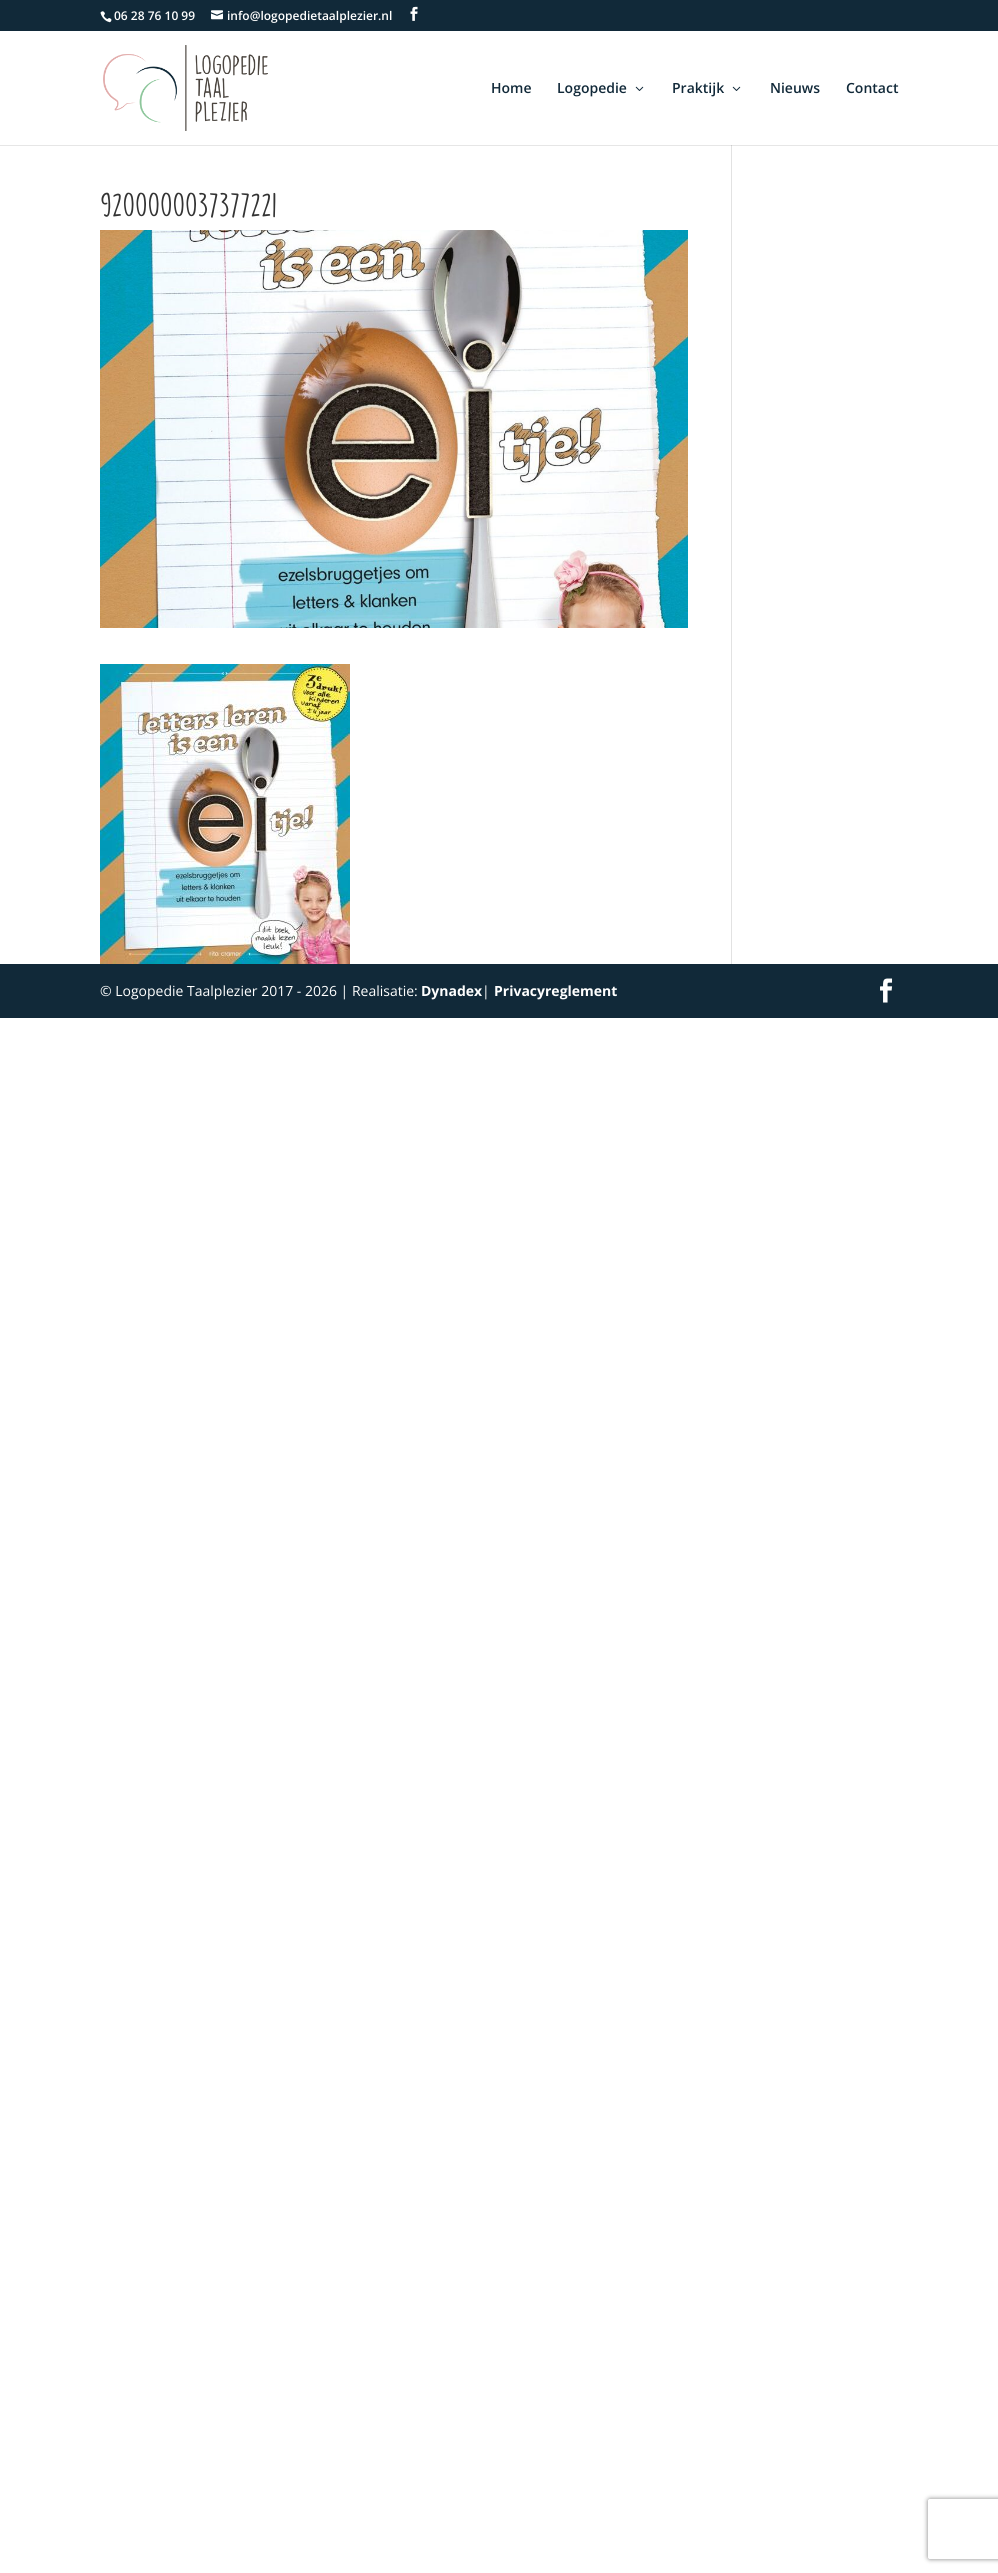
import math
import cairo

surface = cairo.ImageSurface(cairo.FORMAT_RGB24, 998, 2573)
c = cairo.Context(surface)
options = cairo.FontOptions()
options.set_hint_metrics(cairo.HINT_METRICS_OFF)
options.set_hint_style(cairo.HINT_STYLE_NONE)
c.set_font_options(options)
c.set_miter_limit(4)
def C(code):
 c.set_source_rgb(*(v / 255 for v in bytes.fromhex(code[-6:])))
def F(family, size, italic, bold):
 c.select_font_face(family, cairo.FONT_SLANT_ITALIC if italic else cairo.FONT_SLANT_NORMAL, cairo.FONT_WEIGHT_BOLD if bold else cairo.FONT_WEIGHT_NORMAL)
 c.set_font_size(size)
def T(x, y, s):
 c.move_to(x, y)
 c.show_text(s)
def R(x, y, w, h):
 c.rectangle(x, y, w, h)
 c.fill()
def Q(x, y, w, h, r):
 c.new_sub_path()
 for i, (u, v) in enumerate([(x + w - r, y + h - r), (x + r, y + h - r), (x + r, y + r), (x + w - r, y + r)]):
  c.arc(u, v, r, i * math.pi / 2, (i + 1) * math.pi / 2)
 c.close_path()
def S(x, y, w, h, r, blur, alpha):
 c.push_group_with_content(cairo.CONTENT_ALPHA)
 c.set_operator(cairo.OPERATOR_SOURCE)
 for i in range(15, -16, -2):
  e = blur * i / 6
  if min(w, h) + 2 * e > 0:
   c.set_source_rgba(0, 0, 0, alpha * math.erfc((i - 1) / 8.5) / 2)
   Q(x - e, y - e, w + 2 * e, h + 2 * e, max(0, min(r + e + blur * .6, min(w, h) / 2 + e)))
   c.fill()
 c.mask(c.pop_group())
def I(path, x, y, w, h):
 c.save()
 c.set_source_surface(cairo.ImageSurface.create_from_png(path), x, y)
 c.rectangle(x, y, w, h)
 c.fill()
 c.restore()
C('ffffff')
c.paint()
C('e6e6e6')
R(0,145,998,1)
C('112939')
R(0,0,998,31)
I('1.png',100,11,12,12)
F('Open Sans SemiBold',12,0,0)
C('ffffff')
T(114,20,'06 28 76 10 99')
I('2.png',211,10,12,10)
T(227,20,'info@logopedietaalplezier.nl')
I('3.png',410,6,8,15)
I('4.png',103,45,165,86)
F('Open Sans SemiBold',14,0,0)
C('112939')
T(491,93,'Home')
T(557,93,'Logopedie')
I('5.png',635,86,9,5)
T(672,93,'Praktijk')
I('5.png',732,86,9,5)
T(770,93,'Nieuws')
T(846,93,'Contact')
F('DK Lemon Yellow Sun',30,0,0)
C('333333')
T(100,217,'9200000037377221')
I('6.png',100,230,588,398)
I('7.png',100,664,250,300)
C('e2e2e2')
R(731,146,1,818)
C('cbcbcb')
R(731,145,1,1)
C('112939')
R(0,964,998,54)
F('Open Sans',14,0,0)
C('ffffff')
T(100,996,'© Logopedie Taalplezier 2017 - 2026 | Realisatie:')
F('Open Sans',14,0,1)
T(421,996,'Dynadex')
F('Open Sans',14,0,0)
T(482,996,'|')
F('Open Sans',14,0,1)
T(494,996,'Privacyreglement')
I('8.png',880,978,13,25)
c.save()
c.set_fill_rule(cairo.FILL_RULE_EVEN_ODD)
c.new_path()
c.move_to(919,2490)
c.line_to(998,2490)
c.line_to(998,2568)
c.line_to(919,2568)
c.close_path()
c.move_to(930,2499)
c.line_to(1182,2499)
c.curve_to(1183,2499,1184,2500,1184,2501)
c.line_to(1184,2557)
c.curve_to(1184,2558,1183,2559,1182,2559)
c.line_to(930,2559)
c.curve_to(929,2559,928,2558,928,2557)
c.line_to(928,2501)
c.curve_to(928,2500,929,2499,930,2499)
c.close_path()
c.clip()
C('808080')
S(928,2499,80,60,2,2.5,1)
c.restore()
surface.write_to_png('o.png')
